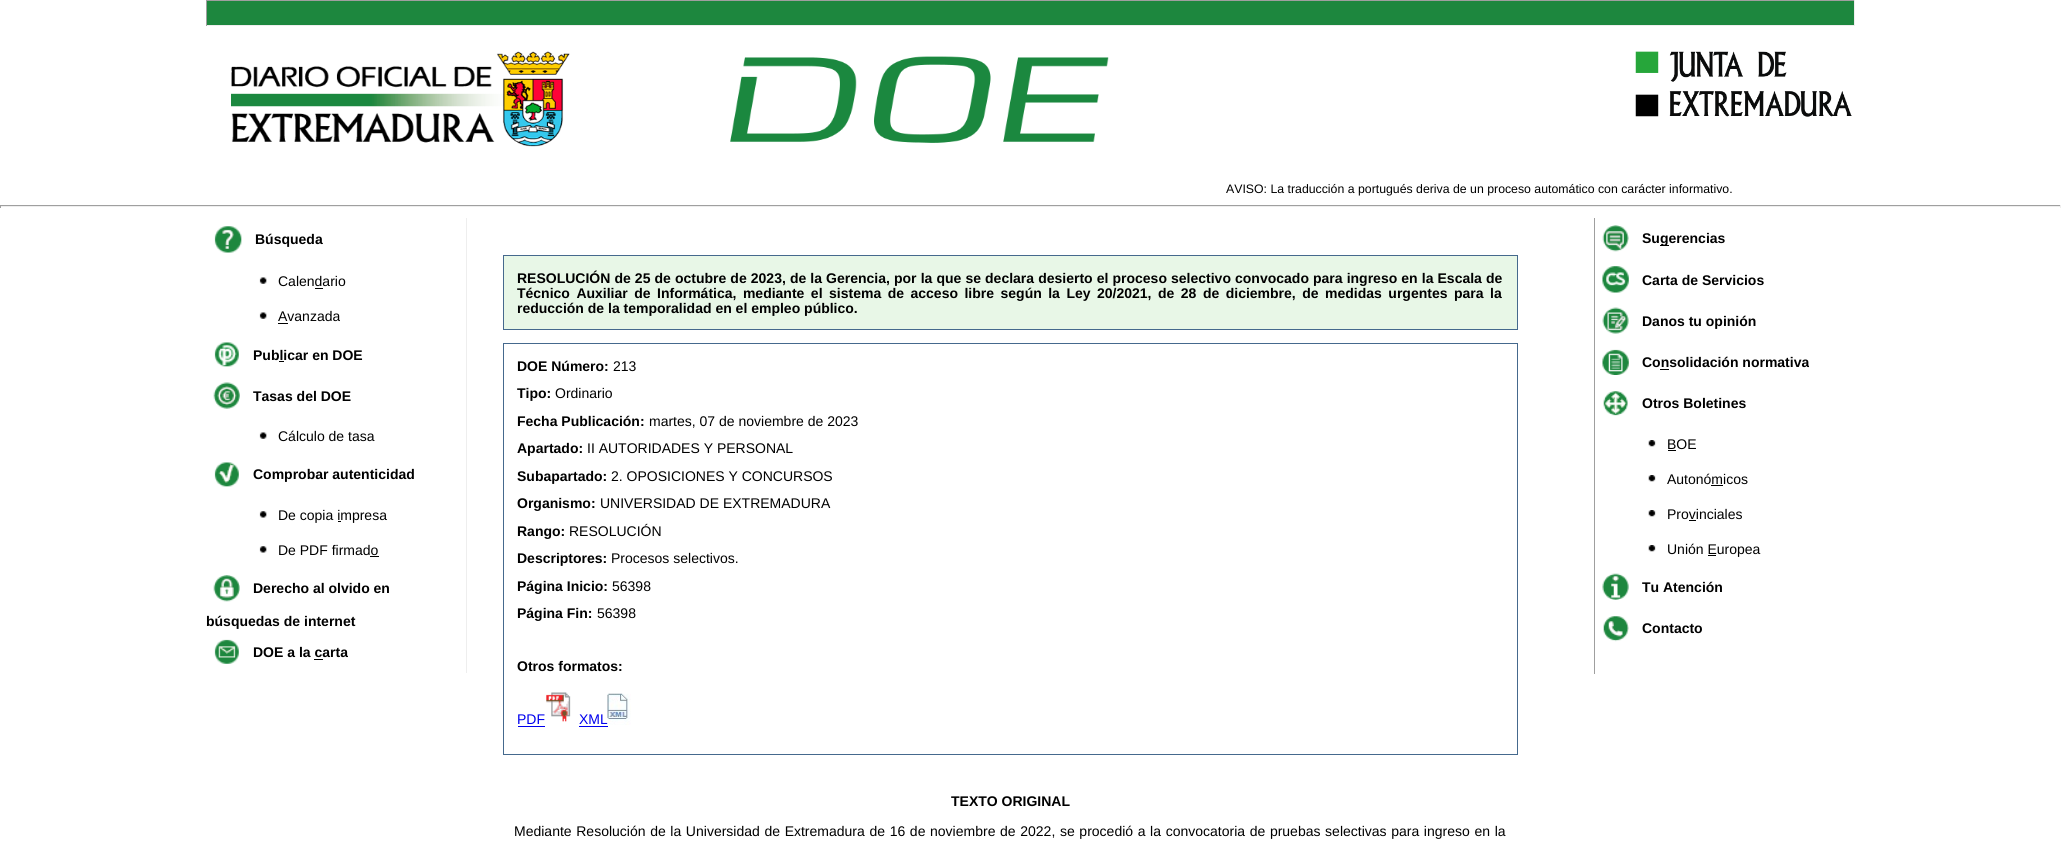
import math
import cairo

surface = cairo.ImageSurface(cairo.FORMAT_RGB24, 2061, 847)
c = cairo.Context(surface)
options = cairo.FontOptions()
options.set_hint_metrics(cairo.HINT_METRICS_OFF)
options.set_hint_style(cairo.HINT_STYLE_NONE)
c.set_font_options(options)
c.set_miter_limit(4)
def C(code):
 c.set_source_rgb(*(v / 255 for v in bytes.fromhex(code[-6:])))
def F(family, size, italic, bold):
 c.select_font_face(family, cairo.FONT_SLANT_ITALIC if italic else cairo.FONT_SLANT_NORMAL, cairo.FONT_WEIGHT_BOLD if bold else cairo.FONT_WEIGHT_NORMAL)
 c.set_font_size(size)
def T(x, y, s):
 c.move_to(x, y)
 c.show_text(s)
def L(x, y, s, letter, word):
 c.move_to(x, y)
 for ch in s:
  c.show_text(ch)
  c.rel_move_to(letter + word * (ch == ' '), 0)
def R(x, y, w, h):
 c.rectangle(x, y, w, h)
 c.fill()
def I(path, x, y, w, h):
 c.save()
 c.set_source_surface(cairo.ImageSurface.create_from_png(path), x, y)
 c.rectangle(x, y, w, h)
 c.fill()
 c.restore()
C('ffffff')
c.paint()
F('Liberation Sans',12.3,0,0)
C('000000')
T(1226,193,'AVISO: La traducción a portugués deriva de un proceso automático con carácter informativo.')
C('1d873e')
R(207,1,1647,24)
C('9f9f9f')
R(206,0,1649,1)
C('eeeeee')
R(1854,0,1,26)
R(206,25,1649,1)
C('9f9f9f')
R(206,0,1,26)
I('1.png',231,51,878,96)
I('2.png',1635,51,217,66)
R(0,205,2061,1)
C('eeeeee')
R(2060,205,1,3)
R(0,206,2061,1)
C('9f9f9f')
R(0,205,1,3)
C('eeeeee')
R(466,218,1,455)
I('3.png',214,226,28,27)
F('Liberation Sans',14,0,1)
C('000000')
T(255,244,'Búsqueda')
I('4.png',259,277,8,7)
F('Liberation Sans',14,0,0)
T(278,286,'Calendario')
R(315,288,8,1)
I('4.png',259,312,8,7)
T(278,321,'Avanzada')
R(278,323,10,1)
I('5.png',214,342,25,25)
F('Liberation Sans',14,0,1)
T(253,360,'Publicar en DOE')
R(279,361,5,1)
I('6.png',213,382,27,27)
T(253,401,'Tasas del DOE')
I('4.png',259,432,8,7)
F('Liberation Sans',14,0,0)
T(278,441,'Cálculo de tasa')
I('7.png',214,462,25,25)
F('Liberation Sans',14,0,1)
T(253,479,'Comprobar autenticidad')
I('8.png',259,511,8,7)
F('Liberation Sans',14,0,0)
T(278,520,'De copia impresa')
R(338,521,3,1)
I('8.png',259,546,8,7)
T(278,555,'De PDF firmado')
R(370,556,9,1)
I('9.png',213,575,27,27)
F('Liberation Sans',14,0,1)
T(253,593,'Derecho al olvido en')
T(206,626,'búsquedas de internet')
I('10.png',214,639,25,25)
T(253,657,'DOE a la carta')
R(314,659,9,1)
C('e8f7e7')
c.rectangle(503.5,255.5,1014,74)
c.fill_preserve()
C('45698d')
c.set_line_width(1)
c.stroke()
C('000000')
L(517,283,'RESOLUCIÓN de 25 de octubre de 2023, de la Gerencia, por la que se declara desierto el proceso selectivo convocado para ingreso en la Escala de',0,.2)
L(517,298,'Técnico Auxiliar de Informática, mediante el sistema de acceso libre según la Ley 20/2021, de 28 de diciembre, de medidas urgentes para la',0,2.6)
T(517,313,'reducción de la temporalidad en el empleo público.')
c.rectangle(503.5,343.5,1014,411)
C('45698d')
c.stroke()
C('000000')
T(517,371,'DOE Número:')
F('Liberation Sans',14,0,0)
T(613,371,'213')
F('Liberation Sans',14,0,1)
T(517,398,'Tipo:')
F('Liberation Sans',14,0,0)
T(555,398,'Ordinario')
F('Liberation Sans',14,0,1)
T(517,426,'Fecha Publicación:')
F('Liberation Sans',14,0,0)
T(649,426,'martes, 07 de noviembre de 2023')
F('Liberation Sans',14,0,1)
T(517,453,'Apartado:')
F('Liberation Sans',14,0,0)
T(587,453,'II AUTORIDADES Y PERSONAL')
F('Liberation Sans',14,0,1)
T(517,481,'Subapartado:')
F('Liberation Sans',14,0,0)
T(611,481,'2. OPOSICIONES Y CONCURSOS')
F('Liberation Sans',14,0,1)
T(517,508,'Organismo:')
F('Liberation Sans',14,0,0)
T(600,508,'UNIVERSIDAD DE EXTREMADURA')
F('Liberation Sans',14,0,1)
T(517,536,'Rango:')
F('Liberation Sans',14,0,0)
T(569,536,'RESOLUCIÓN')
F('Liberation Sans',14,0,1)
T(517,563,'Descriptores:')
F('Liberation Sans',14,0,0)
T(611,563,'Procesos selectivos.')
F('Liberation Sans',14,0,1)
T(517,591,'Página Inicio:')
F('Liberation Sans',14,0,0)
T(612,591,'56398')
F('Liberation Sans',14,0,1)
T(517,618,'Página Fin:')
F('Liberation Sans',14,0,0)
T(597,618,'56398')
F('Liberation Sans',14,0,1)
T(517,671,'Otros formatos:')
F('Liberation Sans',14,0,0)
C('0000ee')
T(517,724,'PDF')
R(518,726,27,1)
I('11.png',546,692,25,30)
T(579,724,'XML')
R(579,726,29,1)
I('12.png',607,693,24,32)
F('Liberation Sans',14,0,1)
C('000000')
T(951,806,'TEXTO ORIGINAL')
F('Liberation Sans',14,0,0)
L(514,836,'Mediante Resolución de la Universidad de Extremadura de 16 de noviembre de 2022, se procedió a la convocatoria de pruebas selectivas para ingreso en la',0,.75)
C('9f9f9f')
R(1594,218,1,456)
I('13.png',1602,225,27,27)
F('Liberation Sans',14,0,1)
C('000000')
T(1642,243,'Su')
R(1660,245,9,1)
T(1660,243,'gerencias')
I('14.png',1602,266,27,27)
T(1642,285,'Carta de Servicios')
I('15.png',1602,307,27,27)
T(1642,326,'Danos tu opinión')
I('16.png',1602,349,27,26)
T(1642,367,'Consolidación normativa')
R(1660,369,9,1)
I('17.png',1603,391,25,25)
T(1642,408,'Otros Boletines')
I('18.png',1648,440,8,7)
F('Liberation Sans',14,0,0)
T(1667,449,'BOE')
R(1668,450,8,1)
I('18.png',1648,475,8,7)
T(1667,484,'Autonómicos')
R(1711,485,12,1)
I('18.png',1648,510,8,7)
T(1667,519,'Provinciales')
R(1689,520,7,1)
I('18.png',1648,545,8,7)
T(1667,554,'Unión Europea')
R(1708,555,8,1)
I('19.png',1602,573,27,27)
F('Liberation Sans',14,0,1)
T(1642,592,'Tu Atención')
I('20.png',1603,616,26,26)
T(1642,633,'Contacto')
surface.write_to_png('o.png')
